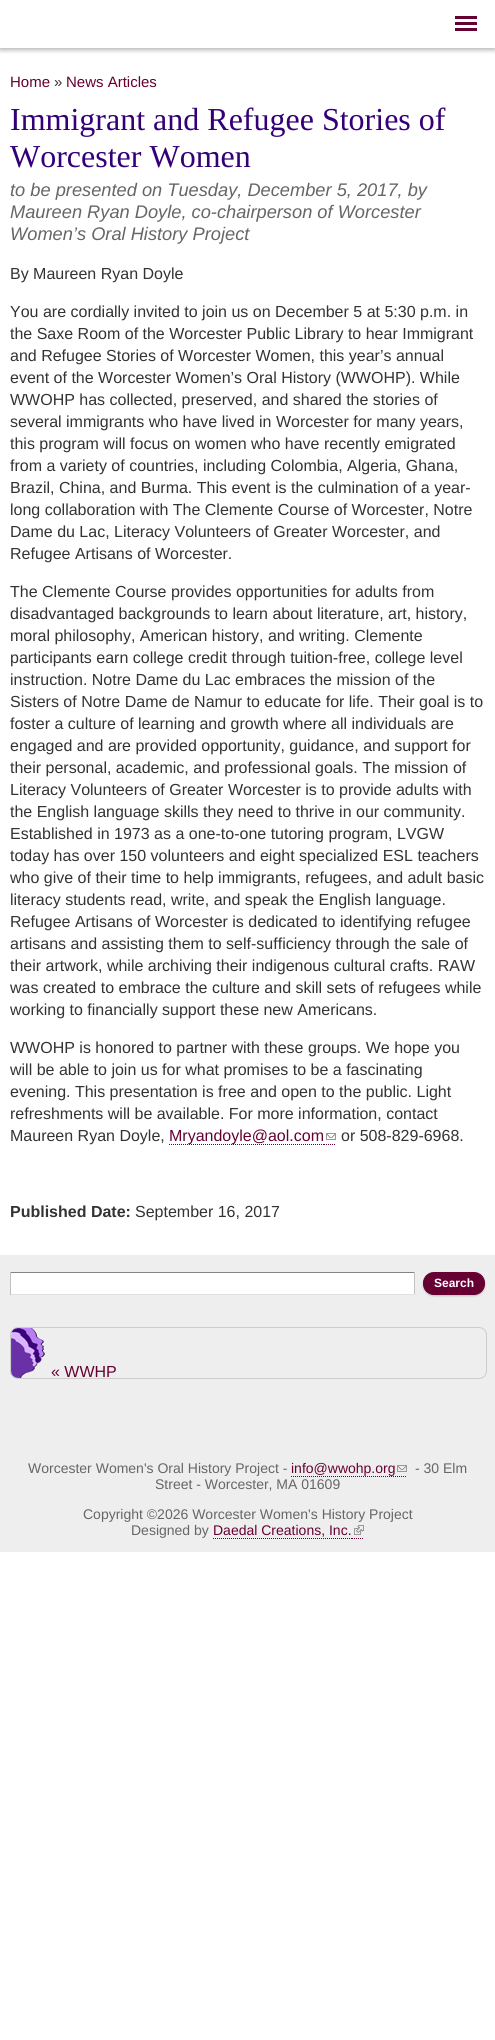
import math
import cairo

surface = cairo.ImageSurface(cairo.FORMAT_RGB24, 495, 2040)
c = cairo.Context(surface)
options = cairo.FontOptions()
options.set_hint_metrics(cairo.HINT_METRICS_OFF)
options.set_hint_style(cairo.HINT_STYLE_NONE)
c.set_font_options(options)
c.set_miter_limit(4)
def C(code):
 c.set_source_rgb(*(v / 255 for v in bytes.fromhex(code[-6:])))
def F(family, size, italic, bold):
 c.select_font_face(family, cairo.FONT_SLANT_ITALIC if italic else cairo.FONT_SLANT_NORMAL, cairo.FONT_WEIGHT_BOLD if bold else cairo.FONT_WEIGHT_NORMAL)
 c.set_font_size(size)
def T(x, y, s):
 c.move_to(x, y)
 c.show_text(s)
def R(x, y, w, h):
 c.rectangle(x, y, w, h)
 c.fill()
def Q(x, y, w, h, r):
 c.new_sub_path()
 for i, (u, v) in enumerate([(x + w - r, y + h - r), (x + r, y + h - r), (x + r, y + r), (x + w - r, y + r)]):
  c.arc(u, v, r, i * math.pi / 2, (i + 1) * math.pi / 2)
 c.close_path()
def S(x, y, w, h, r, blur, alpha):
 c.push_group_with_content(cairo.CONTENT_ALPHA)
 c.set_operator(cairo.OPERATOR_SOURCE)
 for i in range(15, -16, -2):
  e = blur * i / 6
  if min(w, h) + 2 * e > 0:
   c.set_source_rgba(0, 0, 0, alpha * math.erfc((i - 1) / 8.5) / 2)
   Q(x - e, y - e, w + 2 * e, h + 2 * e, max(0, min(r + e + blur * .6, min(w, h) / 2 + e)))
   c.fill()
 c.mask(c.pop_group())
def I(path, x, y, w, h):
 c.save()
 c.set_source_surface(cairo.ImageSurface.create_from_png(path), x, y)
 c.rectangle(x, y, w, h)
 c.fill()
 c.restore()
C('ffffff')
c.paint()
c.save()
c.rectangle(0,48,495,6)
c.clip()
C('000000')
S(0,2,495,48,0,2.5,.3)
c.restore()
C('660033')
R(455,16,22,3)
R(455,22,22,3)
R(455,28,22,3)
F('Liberation Sans',15,0,0)
T(10,87,'Home')
C('333333')
T(54,87,'»')
C('660033')
T(66,87,'News Articles')
F('Liberation Serif',32,0,0)
C('330077')
T(10,130,'Immigrant and Refugee Stories of')
T(10,167,'Worcester Women')
F('Liberation Sans',18.25,1,0)
C('666666')
T(10,196,'to be presented on Tuesday, December 5, 2017, by')
T(10,218,'Maureen Ryan Doyle, co-chairperson of Worcester')
T(10,240,'Women’s Oral History Project')
F('Liberation Sans',16,0,0)
C('333333')
T(10,279,'By Maureen Ryan Doyle')
T(10,317,'You are cordially invited to join us on December 5 at 5:30 p.m. in')
T(10,339,'the Saxe Room of the Worcester Public Library to hear Immigrant')
T(10,361,'and Refugee Stories of Worcester Women, this year’s annual')
T(10,383,'event of the Worcester Women’s Oral History (WWOHP). While')
T(10,405,'WWOHP has collected, preserved, and shared the stories of')
T(10,427,'several immigrants who have lived in Worcester for many years,')
T(10,449,'this program will focus on women who have recently emigrated')
T(10,471,'from a variety of countries, including Colombia, Algeria, Ghana,')
T(10,493,'Brazil, China, and Burma. This event is the culmination of a year-')
T(10,515,'long collaboration with The Clemente Course of Worcester, Notre')
T(10,537,'Dame du Lac, Literacy Volunteers of Greater Worcester, and')
T(10,559,'Refugee Artisans of Worcester.')
T(10,597,'The Clemente Course provides opportunities for adults from')
T(10,619,'disadvantaged backgrounds to learn about literature, art, history,')
T(10,641,'moral philosophy, American history, and writing. Clemente')
T(10,663,'participants earn college credit through tuition-free, college level')
T(10,685,'instruction. Notre Dame du Lac embraces the mission of the')
T(10,707,'Sisters of Notre Dame de Namur to educate for life. Their goal is to')
T(10,729,'foster a culture of learning and growth where all individuals are')
T(10,751,'engaged and are provided opportunity, guidance, and support for')
T(10,773,'their personal, academic, and professional goals. The mission of')
T(10,795,'Literacy Volunteers of Greater Worcester is to provide adults with')
T(10,817,'the English language skills they need to thrive in our community.')
T(10,839,'Established in 1973 as a one-to-one tutoring program, LVGW')
T(10,861,'today has over 150 volunteers and eight specialized ESL teachers')
T(10,883,'who give of their time to help immigrants, refugees, and adult basic')
T(10,905,'literacy students read, write, and speak the English language.')
T(10,927,'Refugee Artisans of Worcester is dedicated to identifying refugee')
T(10,949,'artisans and assisting them to self-sufficiency through the sale of')
T(10,971,'their artwork, while archiving their indigenous cultural crafts. RAW')
T(10,993,'was created to embrace the culture and skill sets of refugees while')
T(10,1015,'working to financially support these new Americans.')
T(10,1053,'WWOHP is honored to partner with these groups. We hope you')
T(10,1075,'will be able to join us for what promises to be a fascinating')
T(10,1097,'evening. This presentation is free and open to the public. Light')
T(10,1119,'refreshments will be available. For more information, contact')
T(10,1141,'Maureen Ryan Doyle,')
c.new_path()
c.move_to(169,1144.5)
c.line_to(324,1144.5)
C('660033')
c.set_line_width(1)
c.set_dash([1,1])
c.stroke()
T(169,1141,'Mryandoyle@aol.com')
c.new_path()
c.move_to(324,1144.5)
c.line_to(336,1144.5)
c.stroke()
I('1.png',326,1133,10,7)
C('333333')
T(341,1141,'or 508-829-6968.')
F('Liberation Sans',16,0,1)
T(10,1217,'Published Date:')
F('Liberation Sans',16,0,0)
T(135,1217,'September 16, 2017')
C('eeeeee')
R(0,1255,495,297)
C('ffffff')
R(11,1273,403,21)
C('848484')
R(10,1272,405,1)
C('c1c1c1')
R(414,1272,1,23)
C('e1e1e1')
R(10,1294,405,1)
C('c1c1c1')
R(10,1272,1,23)
C('000000')
S(423,1273,62,23,11,1,.2)
C('660033')
Q(423.5,1272.5,61,22,10.5)
c.fill_preserve()
c.set_dash([])
c.stroke()
F('Liberation Sans',12,0,1)
C('ffffff')
T(434,1287,'Search')
Q(10.5,1327.5,476,51,7.5)
C('cccccc')
c.stroke()
I('2.png',11,1328,34,50)
F('Liberation Sans',16,0,0)
C('660033')
T(51,1377,'« WWHP')
F('Liberation Sans',14,0,0)
C('666666')
T(28,1473,'Worcester Women\'s Oral History Project -')
C('660033')
T(291,1473,'info@wwohp.org')
c.new_path()
c.move_to(291,1476.5)
c.line_to(395,1476.5)
c.set_dash([1,1])
c.stroke()
c.new_path()
c.move_to(395,1476.5)
c.line_to(407,1476.5)
c.stroke()
I('3.png',397,1465,10,7)
C('666666')
T(415,1473,'- 30 Elm')
T(155,1489,'Street - Worcester, MA 01609')
T(83,1519,'Copyright ©2026 Worcester Women\'s History Project')
T(131,1535,'Designed by')
C('660033')
T(213,1535,'Daedal Creations, Inc.')
c.new_path()
c.move_to(213,1538.5)
c.line_to(352,1538.5)
c.stroke()
c.new_path()
c.move_to(352,1538.5)
c.line_to(364,1538.5)
c.stroke()
I('4.png',354,1525,10,10)
surface.write_to_png('o.png')
